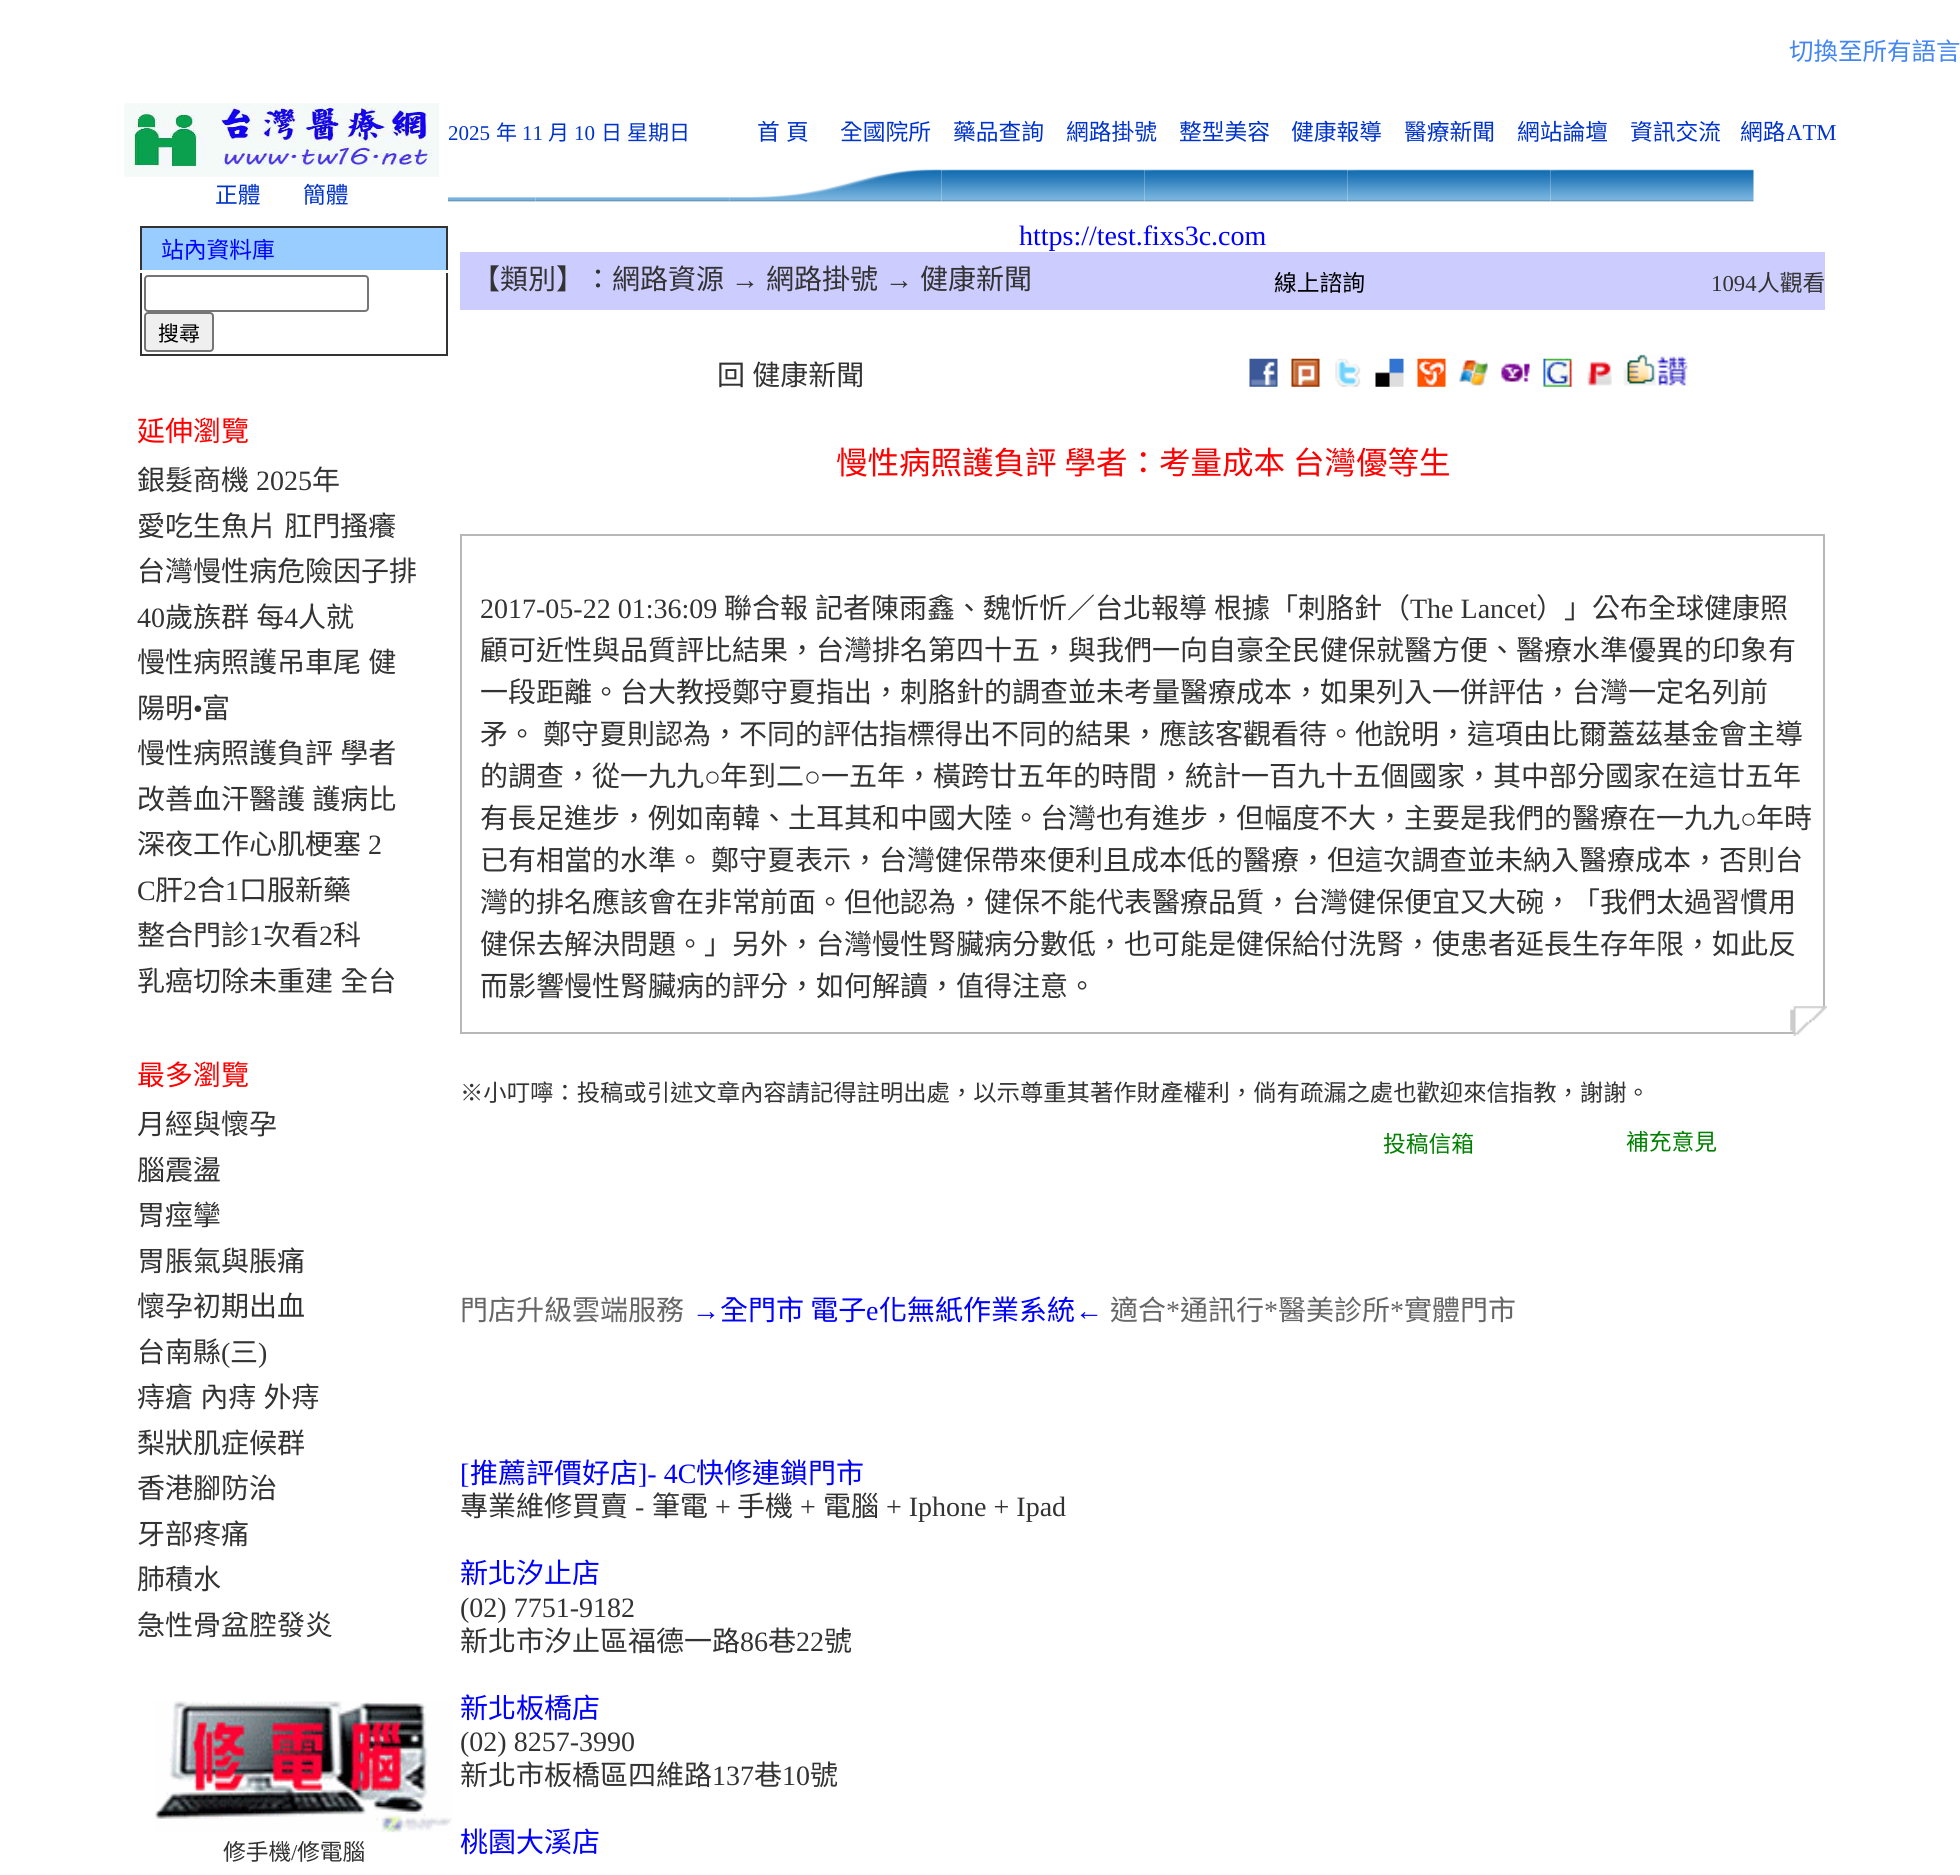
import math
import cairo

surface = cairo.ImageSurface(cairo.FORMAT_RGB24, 1960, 1875)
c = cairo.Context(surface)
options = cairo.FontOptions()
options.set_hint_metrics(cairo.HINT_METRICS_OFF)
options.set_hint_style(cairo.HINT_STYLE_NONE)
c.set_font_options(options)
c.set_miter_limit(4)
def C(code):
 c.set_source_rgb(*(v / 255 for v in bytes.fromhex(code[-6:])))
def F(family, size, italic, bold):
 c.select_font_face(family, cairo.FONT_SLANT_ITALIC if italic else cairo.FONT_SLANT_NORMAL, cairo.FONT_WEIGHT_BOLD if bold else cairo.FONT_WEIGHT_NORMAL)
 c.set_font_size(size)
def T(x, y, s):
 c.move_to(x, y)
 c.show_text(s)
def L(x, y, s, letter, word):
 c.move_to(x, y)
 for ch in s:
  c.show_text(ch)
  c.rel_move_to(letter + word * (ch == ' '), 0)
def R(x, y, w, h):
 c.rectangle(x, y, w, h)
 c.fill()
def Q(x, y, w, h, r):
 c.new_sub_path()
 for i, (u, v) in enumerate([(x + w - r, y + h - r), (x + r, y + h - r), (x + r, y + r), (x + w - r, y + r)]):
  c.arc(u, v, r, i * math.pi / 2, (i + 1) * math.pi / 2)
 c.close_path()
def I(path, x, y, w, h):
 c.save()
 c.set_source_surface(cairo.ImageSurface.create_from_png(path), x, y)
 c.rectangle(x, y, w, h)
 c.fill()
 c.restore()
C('ffffff')
c.paint()
F('Noto Sans CJK TC',24.5,0,0)
C('4285f4')
T(1789,60,'切換至所有語言')
F('Liberation Serif',21,0,0)
C('0033cc')
T(448,140,'2025')
F('Noto Sans CJK TC',21,0,0)
T(496,140,'年')
F('Liberation Serif',21,0,0)
T(522,140,'11')
F('Noto Sans CJK TC',21,0,0)
T(548,140,'月')
F('Liberation Serif',21,0,0)
T(574,140,'10')
F('Noto Sans CJK TC',21,0,0)
T(601,140,'日')
T(627,140,'星期日')
F('Noto Sans CJK TC',22.75,0,0)
T(757,140,'首')
T(786,140,'頁')
T(840,140,'全國院所')
T(953,140,'藥品查詢')
T(1066,140,'網路掛號')
T(1179,140,'整型美容')
T(1291,140,'健康報導')
T(1404,140,'醫療新聞')
T(1517,140,'網站論壇')
T(1630,140,'資訊交流')
T(1740,140,'網路')
F('Liberation Serif',22.75,0,0)
T(1786,140,'ATM')
I('1.png',124,103,315,74)
F('Noto Sans CJK TC',22.75,0,0)
T(215,203,'正體')
T(303,203,'簡體')
I('2.png',448,197,88,5)
I('3.png',535,197,195,5)
I('4.png',729,169,213,33)
I('5.png',941,169,204,33)
I('5.png',1144,169,204,33)
I('5.png',1347,169,204,33)
I('5.png',1550,169,204,33)
C('99ccff')
R(142,228,304,42)
C('333333')
R(140,226,308,2)
R(446,226,2,44)
R(140,226,2,44)
C('0000ff')
T(161,258,'站內資料庫')
C('333333')
R(446,273,2,82)
R(140,354,308,2)
R(140,273,2,82)
Q(145,276,223,35,3)
C('767676')
c.stroke()
C('efefef')
Q(145,313,68,38,3)
c.fill_preserve()
C('767676')
c.stroke()
F('Noto Sans CJK TC',21,0,0)
C('000000')
T(158,341,'搜尋')
F('Noto Sans CJK TC',28,0,0)
C('ff0000')
T(137,441,'延伸瀏覽')
C('333333')
T(137,490,'銀髮商機')
F('Liberation Serif',28,0,0)
T(256,490,'2025')
F('Noto Sans CJK TC',28,0,0)
T(312,490,'年')
L(137,536,'愛吃生魚片 肛門搔癢',0,1)
T(137,581,'台灣慢性病危險因子排')
F('Liberation Serif',28,0,0)
T(137,627,'40')
F('Noto Sans CJK TC',28,0,0)
L(165,627,'歲族群 每',0,1)
F('Liberation Serif',28,0,0)
T(284,627,'4')
F('Noto Sans CJK TC',28,0,0)
T(298,627,'人就')
L(137,672,'慢性病照護吊車尾 健',0,1)
T(137,718,'陽明')
F('Liberation Serif',28,0,0)
T(193,718,'•')
F('Noto Sans CJK TC',28,0,0)
T(202,718,'富')
L(137,763,'慢性病照護負評 學者',0,1)
L(137,809,'改善血汗醫護 護病比',0,1)
T(137,854,'深夜工作心肌梗塞')
F('Liberation Serif',28,0,0)
T(368,854,'2')
T(137,900,'C')
F('Noto Sans CJK TC',28,0,0)
T(155,900,'肝')
F('Liberation Serif',28,0,0)
T(183,900,'2')
F('Noto Sans CJK TC',28,0,0)
T(197,900,'合')
F('Liberation Serif',28,0,0)
T(225,900,'1')
F('Noto Sans CJK TC',28,0,0)
T(239,900,'口服新藥')
T(137,945,'整合門診')
F('Liberation Serif',28,0,0)
T(249,945,'1')
F('Noto Sans CJK TC',28,0,0)
T(263,945,'次看')
F('Liberation Serif',28,0,0)
T(319,945,'2')
F('Noto Sans CJK TC',28,0,0)
T(333,945,'科')
L(137,991,'乳癌切除未重建 全台',0,1)
C('ff0000')
T(137,1085,'最多瀏覽')
C('333333')
T(137,1134,'月經與懷孕')
T(137,1180,'腦震盪')
T(137,1225,'胃痙攣')
T(137,1271,'胃脹氣與脹痛')
T(137,1316,'懷孕初期出血')
T(137,1362,'台南縣')
F('Liberation Serif',28,0,0)
T(221,1362,'(')
F('Noto Sans CJK TC',28,0,0)
T(230,1362,'三')
F('Liberation Serif',28,0,0)
T(258,1362,')')
F('Noto Sans CJK TC',28,0,0)
L(137,1407,'痔瘡 內痔 外痔',0,1)
T(137,1453,'梨狀肌症候群')
T(137,1498,'香港腳防治')
T(137,1544,'牙部疼痛')
T(137,1589,'肺積水')
T(137,1635,'急性骨盆腔發炎')
I('6.png',155,1701,297,132)
F('Noto Sans CJK TC',22.75,0,0)
T(223,1860,'修手機')
F('Liberation Serif',22.75,0,0)
T(291,1860,'/')
F('Noto Sans CJK TC',22.75,0,0)
T(297,1860,'修電腦')
F('Liberation Serif',28,0,0)
C('0000ff')
T(1019,245,'https://test.fixs3c.com')
C('ccccff')
R(460,252,1365,58)
F('Noto Sans CJK TC',28,0,0)
C('333333')
T(472,289,'【類別】：網路資源')
F('Liberation Serif',28,0,0)
T(731,289,'→')
F('Noto Sans CJK TC',28,0,0)
T(766,289,'網路掛號')
F('Liberation Serif',28,0,0)
T(885,289,'→')
F('Noto Sans CJK TC',28,0,0)
T(920,289,'健康新聞')
F('Noto Sans CJK TC',22.75,0,0)
C('000000')
T(1274,291,'線上諮詢')
F('Liberation Serif',22.75,0,0)
C('333333')
T(1711,291,'1094')
F('Noto Sans CJK TC',22.75,0,0)
T(1757,291,'人觀看')
F('Noto Sans CJK TC',28,0,0)
L(717,385,'回 健康新聞',0,1)
I('7.png',1249,358,29,29)
I('8.png',1291,358,29,29)
I('9.png',1335,358,26,29)
I('10.png',1375,358,29,29)
I('11.png',1417,358,29,29)
I('12.png',1459,360,29,26)
I('13.png',1501,363,29,19)
I('14.png',1543,358,29,29)
I('15.png',1587,361,25,25)
I('16.png',1623,354,65,32)
F('Noto Sans CJK TC',31.5,0,0)
C('ff0000')
L(836,474,'慢性病照護負評 學者：考量成本 台灣優等生',0,1)
c.rectangle(461,535,1363,498)
C('b8b8b8')
c.stroke()
I('17.png',1790,1006,37,30)
F('Liberation Serif',28,0,0)
C('333333')
T(480,618,'2017-05-22 01:36:09')
F('Noto Sans CJK TC',28,0,0)
T(724,618,'聯合報')
T(815,618,'記者陳雨鑫、魏忻忻／台北報導')
T(1214,618,'根據「刺胳針（')
F('Liberation Serif',28,0,0)
T(1410,618,'The Lancet')
F('Noto Sans CJK TC',28,0,0)
T(1536,618,'）」公布全球健康照')
T(480,660,'顧可近性與品質評比結果，台灣排名第四十五，與我們一向自豪全民健保就醫方便、醫療水準優異的印象有')
T(480,702,'一段距離。台大教授鄭守夏指出，刺胳針的調查並未考量醫療成本，如果列入一併評估，台灣一定名列前')
T(480,744,'矛。')
T(543,744,'鄭守夏則認為，不同的評估指標得出不同的結果，應該客觀看待。他說明，這項由比爾蓋茲基金會主導')
T(480,786,'的調查，從一九九')
F('Liberation Serif',28,0,0)
T(704,786,'○')
F('Noto Sans CJK TC',28,0,0)
T(720,786,'年到二')
F('Liberation Serif',28,0,0)
T(804,786,'○')
F('Noto Sans CJK TC',28,0,0)
T(821,786,'一五年，橫跨廿五年的時間，統計一百九十五個國家，其中部分國家在這廿五年')
T(480,828,'有長足進步，例如南韓、土耳其和中國大陸。台灣也有進步，但幅度不大，主要是我們的醫療在一九九')
F('Liberation Serif',28,0,0)
T(1740,828,'○')
F('Noto Sans CJK TC',28,0,0)
T(1756,828,'年時')
T(480,870,'已有相當的水準。')
T(711,870,'鄭守夏表示，台灣健保帶來便利且成本低的醫療，但這次調查並未納入醫療成本，否則台')
T(480,912,'灣的排名應該會在非常前面。但他認為，健保不能代表醫療品質，台灣健保便宜又大碗，「我們太過習慣用')
T(480,954,'健保去解決問題。」另外，台灣慢性腎臟病分數低，也可能是健保給付洗腎，使患者延長生存年限，如此反')
T(480,996,'而影響慢性腎臟病的評分，如何解讀，值得注意。')
F('Noto Sans CJK TC',23.33,0,0)
T(460,1101,'※小叮嚀：投稿或引述文章內容請記得註明出處，以示尊重其著作財產權利，倘有疏漏之處也歡迎來信指教，謝謝。')
F('Noto Sans CJK TC',22.75,0,0)
C('008000')
T(1383,1152,'投稿信箱')
T(1626,1150,'補充意見')
F('Noto Sans CJK TC',28,0,0)
C('666666')
T(460,1320,'門店升級雲端服務')
F('Liberation Serif',28,0,0)
C('0000ff')
T(692,1320,'→')
F('Noto Sans CJK TC',28,0,0)
T(720,1320,'全門市 電子')
F('Liberation Serif',28,0,0)
T(866,1320,'e')
F('Noto Sans CJK TC',28,0,0)
T(879,1320,'化無紙作業系統')
F('Liberation Serif',28,0,0)
T(1075,1320,'←')
F('Noto Sans CJK TC',28,0,0)
C('666666')
T(1110,1320,'適合')
F('Liberation Serif',28,0,0)
T(1166,1320,'*')
F('Noto Sans CJK TC',28,0,0)
T(1180,1320,'通訊行')
F('Liberation Serif',28,0,0)
T(1264,1320,'*')
F('Noto Sans CJK TC',28,0,0)
T(1278,1320,'醫美診所')
F('Liberation Serif',28,0,0)
T(1390,1320,'*')
F('Noto Sans CJK TC',28,0,0)
T(1404,1320,'實體門市')
F('Liberation Serif',28,0,0)
C('0000ff')
T(460,1483,'[')
F('Noto Sans CJK TC',28,0,0)
T(470,1483,'推薦評價好店')
F('Liberation Serif',28,0,0)
T(638,1483,']- 4C')
F('Noto Sans CJK TC',28,0,0)
T(696,1483,'快修連鎖門市')
C('333333')
T(460,1516,'專業維修買賣')
F('Liberation Serif',28,0,0)
T(635,1516,'-')
F('Noto Sans CJK TC',28,0,0)
T(652,1516,'筆電')
F('Liberation Serif',28,0,0)
T(715,1516,'+')
F('Noto Sans CJK TC',28,0,0)
T(737,1516,'手機')
F('Liberation Serif',28,0,0)
T(800,1516,'+')
F('Noto Sans CJK TC',28,0,0)
T(823,1516,'電腦')
F('Liberation Serif',28,0,0)
T(886,1516,'+ Iphone + Ipad')
F('Noto Sans CJK TC',28,0,0)
C('0000ff')
T(460,1583,'新北汐止店')
F('Liberation Serif',28,0,0)
C('333333')
T(460,1617,'(02) 7751-9182')
F('Noto Sans CJK TC',28,0,0)
T(460,1651,'新北市汐止區福德一路')
F('Liberation Serif',28,0,0)
T(740,1651,'86')
F('Noto Sans CJK TC',28,0,0)
T(768,1651,'巷')
F('Liberation Serif',28,0,0)
T(796,1651,'22')
F('Noto Sans CJK TC',28,0,0)
T(824,1651,'號')
C('0000ff')
T(460,1718,'新北板橋店')
F('Liberation Serif',28,0,0)
C('333333')
T(460,1751,'(02) 8257-3990')
F('Noto Sans CJK TC',28,0,0)
T(460,1785,'新北市板橋區四維路')
F('Liberation Serif',28,0,0)
T(712,1785,'137')
F('Noto Sans CJK TC',28,0,0)
T(754,1785,'巷')
F('Liberation Serif',28,0,0)
T(782,1785,'10')
F('Noto Sans CJK TC',28,0,0)
T(810,1785,'號')
C('0000ff')
T(460,1852,'桃園大溪店')
surface.write_to_png('o.png')
